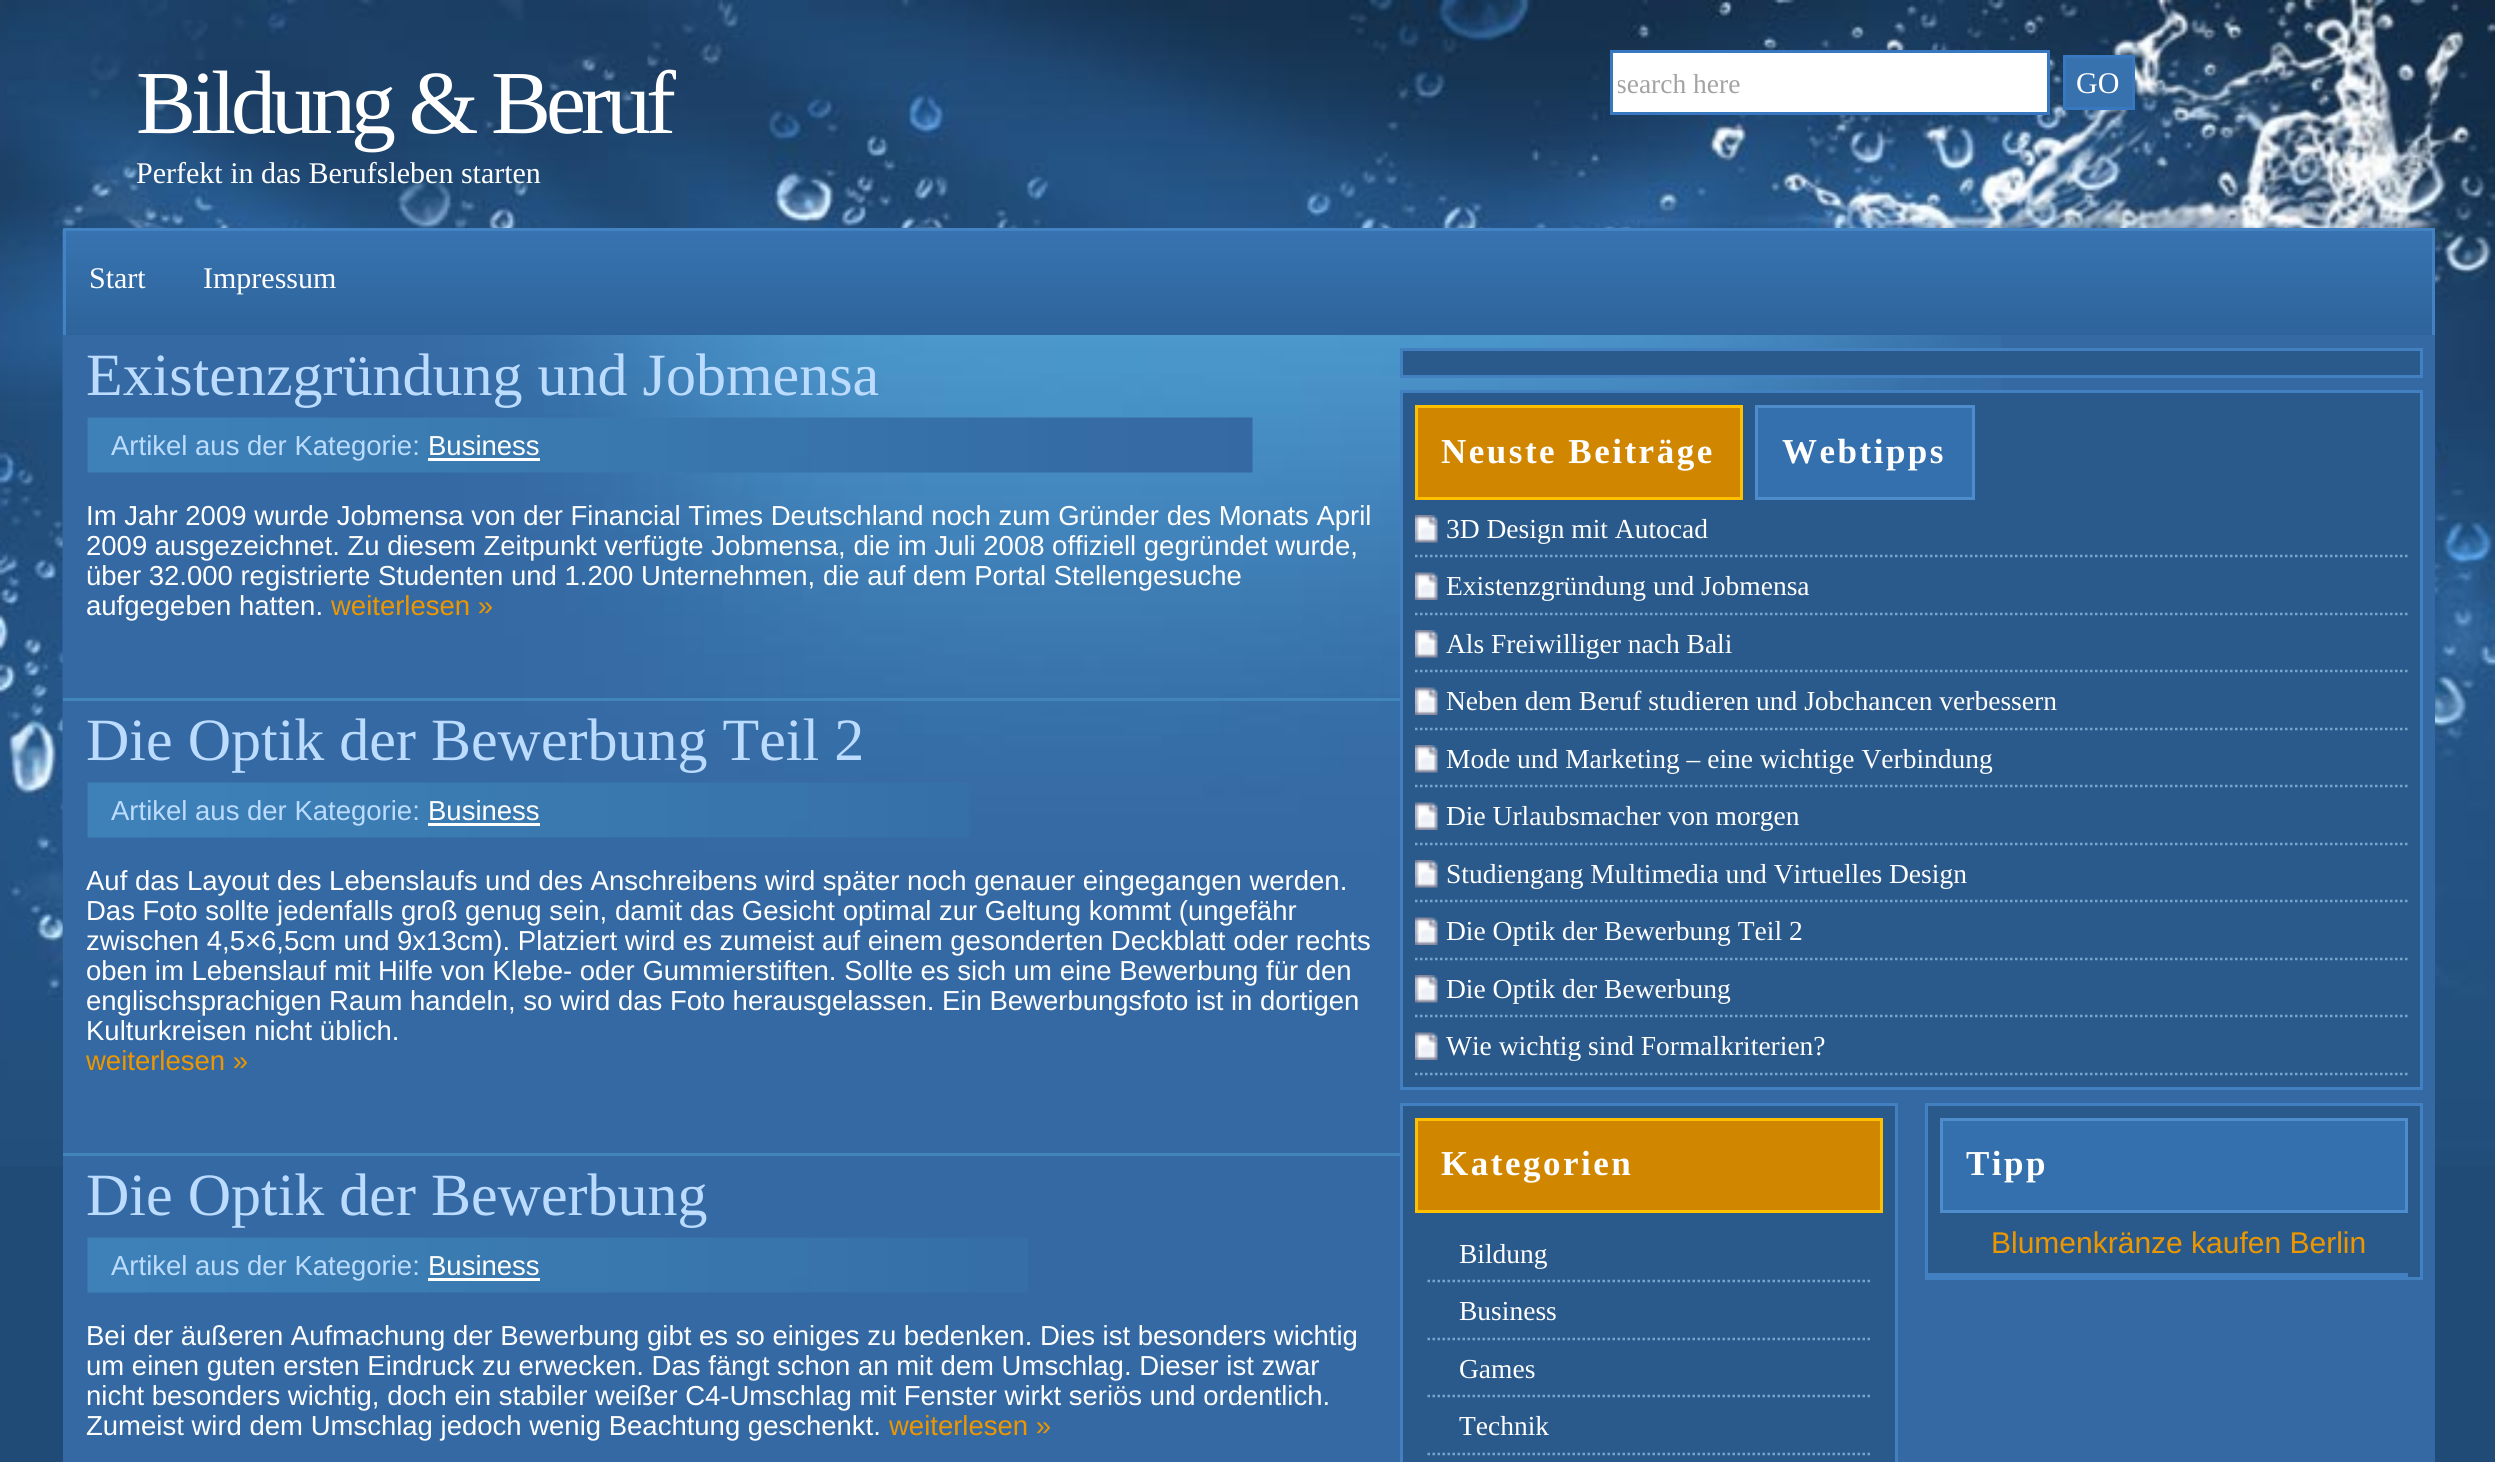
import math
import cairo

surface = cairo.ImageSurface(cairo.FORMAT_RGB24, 2495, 1462)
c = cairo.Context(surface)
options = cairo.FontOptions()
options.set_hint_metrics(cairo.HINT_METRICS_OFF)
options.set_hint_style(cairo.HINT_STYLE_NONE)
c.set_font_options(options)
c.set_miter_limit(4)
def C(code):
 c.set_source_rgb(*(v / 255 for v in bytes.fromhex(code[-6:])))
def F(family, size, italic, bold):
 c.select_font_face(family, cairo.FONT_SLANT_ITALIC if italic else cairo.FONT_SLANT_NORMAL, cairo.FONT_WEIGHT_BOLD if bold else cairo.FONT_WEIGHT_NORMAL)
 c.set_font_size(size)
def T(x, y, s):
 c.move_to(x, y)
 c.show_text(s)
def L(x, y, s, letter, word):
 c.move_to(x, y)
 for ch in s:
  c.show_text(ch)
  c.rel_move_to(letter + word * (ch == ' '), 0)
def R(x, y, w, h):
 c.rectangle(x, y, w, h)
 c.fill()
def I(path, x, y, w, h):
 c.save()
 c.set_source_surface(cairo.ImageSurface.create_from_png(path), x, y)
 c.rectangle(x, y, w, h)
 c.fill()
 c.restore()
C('214b77')
c.paint()
I('1.png',0,0,2495,1166)
F('Liberation Serif',90,0,0)
C('ffffff')
L(136,133,'Bildung & Beruf',-5,0)
F('Liberation Serif',30,0,0)
T(136,183,'Perfekt in das Berufsleben starten')
c.rectangle(1611.5,51.5,437,62)
c.fill_preserve()
C('3778c1')
c.set_line_width(3)
c.stroke()
c.save()
c.rectangle(1618,68,425,30)
c.clip()
F('Liberation Serif',27.5,0,0)
C('a3a3a3')
T(1616,93,'search here')
c.restore()
C('3772ae')
c.rectangle(2064.5,56.5,69,52)
c.fill_preserve()
C('3778c1')
c.stroke()
C('ffffff')
T(2076,93,'GO')
I('2.png',62,230,2370,105)
c.rectangle(64.5,229.5,2369,107)
C('4382c3')
c.stroke()
C('ffffff')
T(89,288,'Start')
T(203,288,'Impressum')
C('3469a4')
R(63,335,2372,1127)
I('3.png',62,335,1939,518)
C('4285bb')
R(63,698,1337,3)
F('Liberation Serif',60,0,0)
C('bcdcff')
T(86,395,'Existenzgründung und Jobmensa')
I('4.png',87,417,1166,56)
F('Liberation Sans',27.5,0,0)
T(111,455,'Artikel aus der Kategorie:')
C('ffffff')
T(428,455,'Business')
R(428,458,112,3)
T(86,525,'Im Jahr 2009 wurde Jobmensa von der Financial Times Deutschland noch zum Gründer des Monats April')
T(86,555,'2009 ausgezeichnet. Zu diesem Zeitpunkt verfügte Jobmensa, die im Juli 2008 offiziell gegründet wurde,')
T(86,585,'über 32.000 registrierte Studenten und 1.200 Unternehmen, die auf dem Portal Stellengesuche')
T(86,615,'aufgegeben hatten.')
C('ec9700')
T(331,615,'weiterlesen »')
C('4285bb')
R(63,1153,1337,3)
F('Liberation Serif',60,0,0)
C('bcdcff')
T(86,760,'Die Optik der Bewerbung Teil 2')
I('5.png',87,782,883,56)
F('Liberation Sans',27.5,0,0)
T(111,820,'Artikel aus der Kategorie:')
C('ffffff')
T(428,820,'Business')
R(428,823,112,3)
T(86,890,'Auf das Layout des Lebenslaufs und des Anschreibens wird später noch genauer eingegangen werden.')
T(86,920,'Das Foto sollte jedenfalls groß genug sein, damit das Gesicht optimal zur Geltung kommt (ungefähr')
T(86,950,'zwischen 4,5×6,5cm und 9x13cm). Platziert wird es zumeist auf einem gesonderten Deckblatt oder rechts')
T(86,980,'oben im Lebenslauf mit Hilfe von Klebe- oder Gummierstiften. Sollte es sich um eine Bewerbung für den')
T(86,1010,'englischsprachigen Raum handeln, so wird das Foto herausgelassen. Ein Bewerbungsfoto ist in dortigen')
T(86,1040,'Kulturkreisen nicht üblich.')
C('ec9700')
T(86,1070,'weiterlesen »')
F('Liberation Serif',60,0,0)
C('bcdcff')
T(86,1215,'Die Optik der Bewerbung')
I('6.png',87,1237,941,56)
F('Liberation Sans',27.5,0,0)
T(111,1275,'Artikel aus der Kategorie:')
C('ffffff')
T(428,1275,'Business')
R(428,1278,112,3)
T(86,1345,'Bei der äußeren Aufmachung der Bewerbung gibt es so einiges zu bedenken. Dies ist besonders wichtig')
T(86,1375,'um einen guten ersten Eindruck zu erwecken. Das fängt schon an mit dem Umschlag. Dieser ist zwar')
T(86,1405,'nicht besonders wichtig, doch ein stabiler weißer C4-Umschlag mit Fenster wirkt seriös und ordentlich.')
T(86,1435,'Zumeist wird dem Umschlag jedoch wenig Beachtung geschenkt.')
C('ec9700')
T(889,1435,'weiterlesen »')
C('2a5a8b')
c.rectangle(1401.5,349.5,1020,27)
c.fill_preserve()
C('4280c1')
c.stroke()
C('2a5a8b')
c.rectangle(1401.5,391.5,1020,697)
c.fill_preserve()
C('4280c1')
c.stroke()
C('d18600')
c.rectangle(1416.5,406.5,325,92)
c.fill_preserve()
C('ffc000')
c.stroke()
F('Liberation Serif',35,0,1)
C('ffffff')
L(1441,463,'Neuste Beiträge',2.5,0)
C('3570ae')
c.rectangle(1756.5,406.5,217,92)
c.fill_preserve()
C('4f8ccc')
c.stroke()
C('ffffff')
L(1782,463,'Webtipps',2.5,0)
I('7.png',1415,515,23,28)
c.new_path()
c.move_to(1415,556)
c.line_to(2407.5,556)
C('75a6cd')
c.set_line_width(2.5)
c.set_dash([2.5,2.5])
c.stroke()
F('Liberation Serif',27.5,0,0)
C('ffffff')
T(1446,538,'3D Design mit Autocad')
I('8.png',1415,572,23,28)
c.new_path()
c.move_to(1415,614)
c.line_to(2407.5,614)
C('75a6cd')
c.stroke()
C('ffffff')
T(1446,595,'Existenzgründung und Jobmensa')
I('7.png',1415,630,23,28)
c.new_path()
c.move_to(1415,671)
c.line_to(2407.5,671)
C('75a6cd')
c.stroke()
C('ffffff')
T(1446,653,'Als Freiwilliger nach Bali')
I('9.png',1415,687,23,28)
c.new_path()
c.move_to(1415,729)
c.line_to(2407.5,729)
C('75a6cd')
c.stroke()
C('ffffff')
T(1446,710,'Neben dem Beruf studieren und Jobchancen verbessern')
I('7.png',1415,745,23,28)
c.new_path()
c.move_to(1415,786)
c.line_to(2407.5,786)
C('75a6cd')
c.stroke()
C('ffffff')
T(1446,768,'Mode und Marketing – eine wichtige Verbindung')
I('9.png',1415,802,23,28)
c.new_path()
c.move_to(1415,844)
c.line_to(2407.5,844)
C('75a6cd')
c.stroke()
C('ffffff')
T(1446,825,'Die Urlaubsmacher von morgen')
I('7.png',1415,860,23,28)
c.new_path()
c.move_to(1415,901)
c.line_to(2407.5,901)
C('75a6cd')
c.stroke()
C('ffffff')
T(1446,883,'Studiengang Multimedia und Virtuelles Design')
I('9.png',1415,917,23,28)
c.new_path()
c.move_to(1415,959)
c.line_to(2407.5,959)
C('75a6cd')
c.stroke()
C('ffffff')
T(1446,940,'Die Optik der Bewerbung Teil 2')
I('7.png',1415,975,23,28)
c.new_path()
c.move_to(1415,1016)
c.line_to(2407.5,1016)
C('75a6cd')
c.stroke()
C('ffffff')
T(1446,998,'Die Optik der Bewerbung')
I('9.png',1415,1032,23,28)
c.new_path()
c.move_to(1415,1074)
c.line_to(2407.5,1074)
C('75a6cd')
c.stroke()
C('ffffff')
T(1446,1055,'Wie wichtig sind Formalkriterien?')
C('2a5a8b')
c.rectangle(1401.5,1104.5,495,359)
c.fill_preserve()
C('4280c1')
c.set_line_width(3)
c.set_dash([])
c.stroke()
C('d18600')
c.rectangle(1416.5,1119.5,465,92)
c.fill_preserve()
C('ffc000')
c.stroke()
F('Liberation Serif',35,0,1)
C('ffffff')
L(1441,1175,'Kategorien',2.5,0)
c.new_path()
c.move_to(1427.5,1281)
c.line_to(1870,1281)
C('75a6cd')
c.set_line_width(2.5)
c.set_dash([2.5,2.5])
c.stroke()
F('Liberation Serif',27.5,0,0)
C('ffffff')
T(1459,1263,'Bildung')
c.new_path()
c.move_to(1427.5,1339)
c.line_to(1870,1339)
C('75a6cd')
c.stroke()
C('ffffff')
T(1459,1320,'Business')
c.new_path()
c.move_to(1427.5,1396)
c.line_to(1870,1396)
C('75a6cd')
c.stroke()
C('ffffff')
T(1459,1378,'Games')
c.new_path()
c.move_to(1427.5,1454)
c.line_to(1870,1454)
C('75a6cd')
c.stroke()
C('ffffff')
T(1459,1435,'Technik')
C('2a5a8b')
c.rectangle(1926.5,1104.5,495,174)
c.fill_preserve()
C('4280c1')
c.set_line_width(3)
c.set_dash([])
c.stroke()
C('3570ae')
c.rectangle(1941.5,1119.5,465,92)
c.fill_preserve()
C('4f8ccc')
c.stroke()
F('Liberation Serif',35,0,1)
C('ffffff')
L(1966,1175,'Tipp',2.5,0)
F('Liberation Sans',30,0,0)
C('ec9700')
T(1991,1253,'Blumenkränze kaufen Berlin')
C('4280c1')
R(1928,1273,480,4)
surface.write_to_png('o.png')
